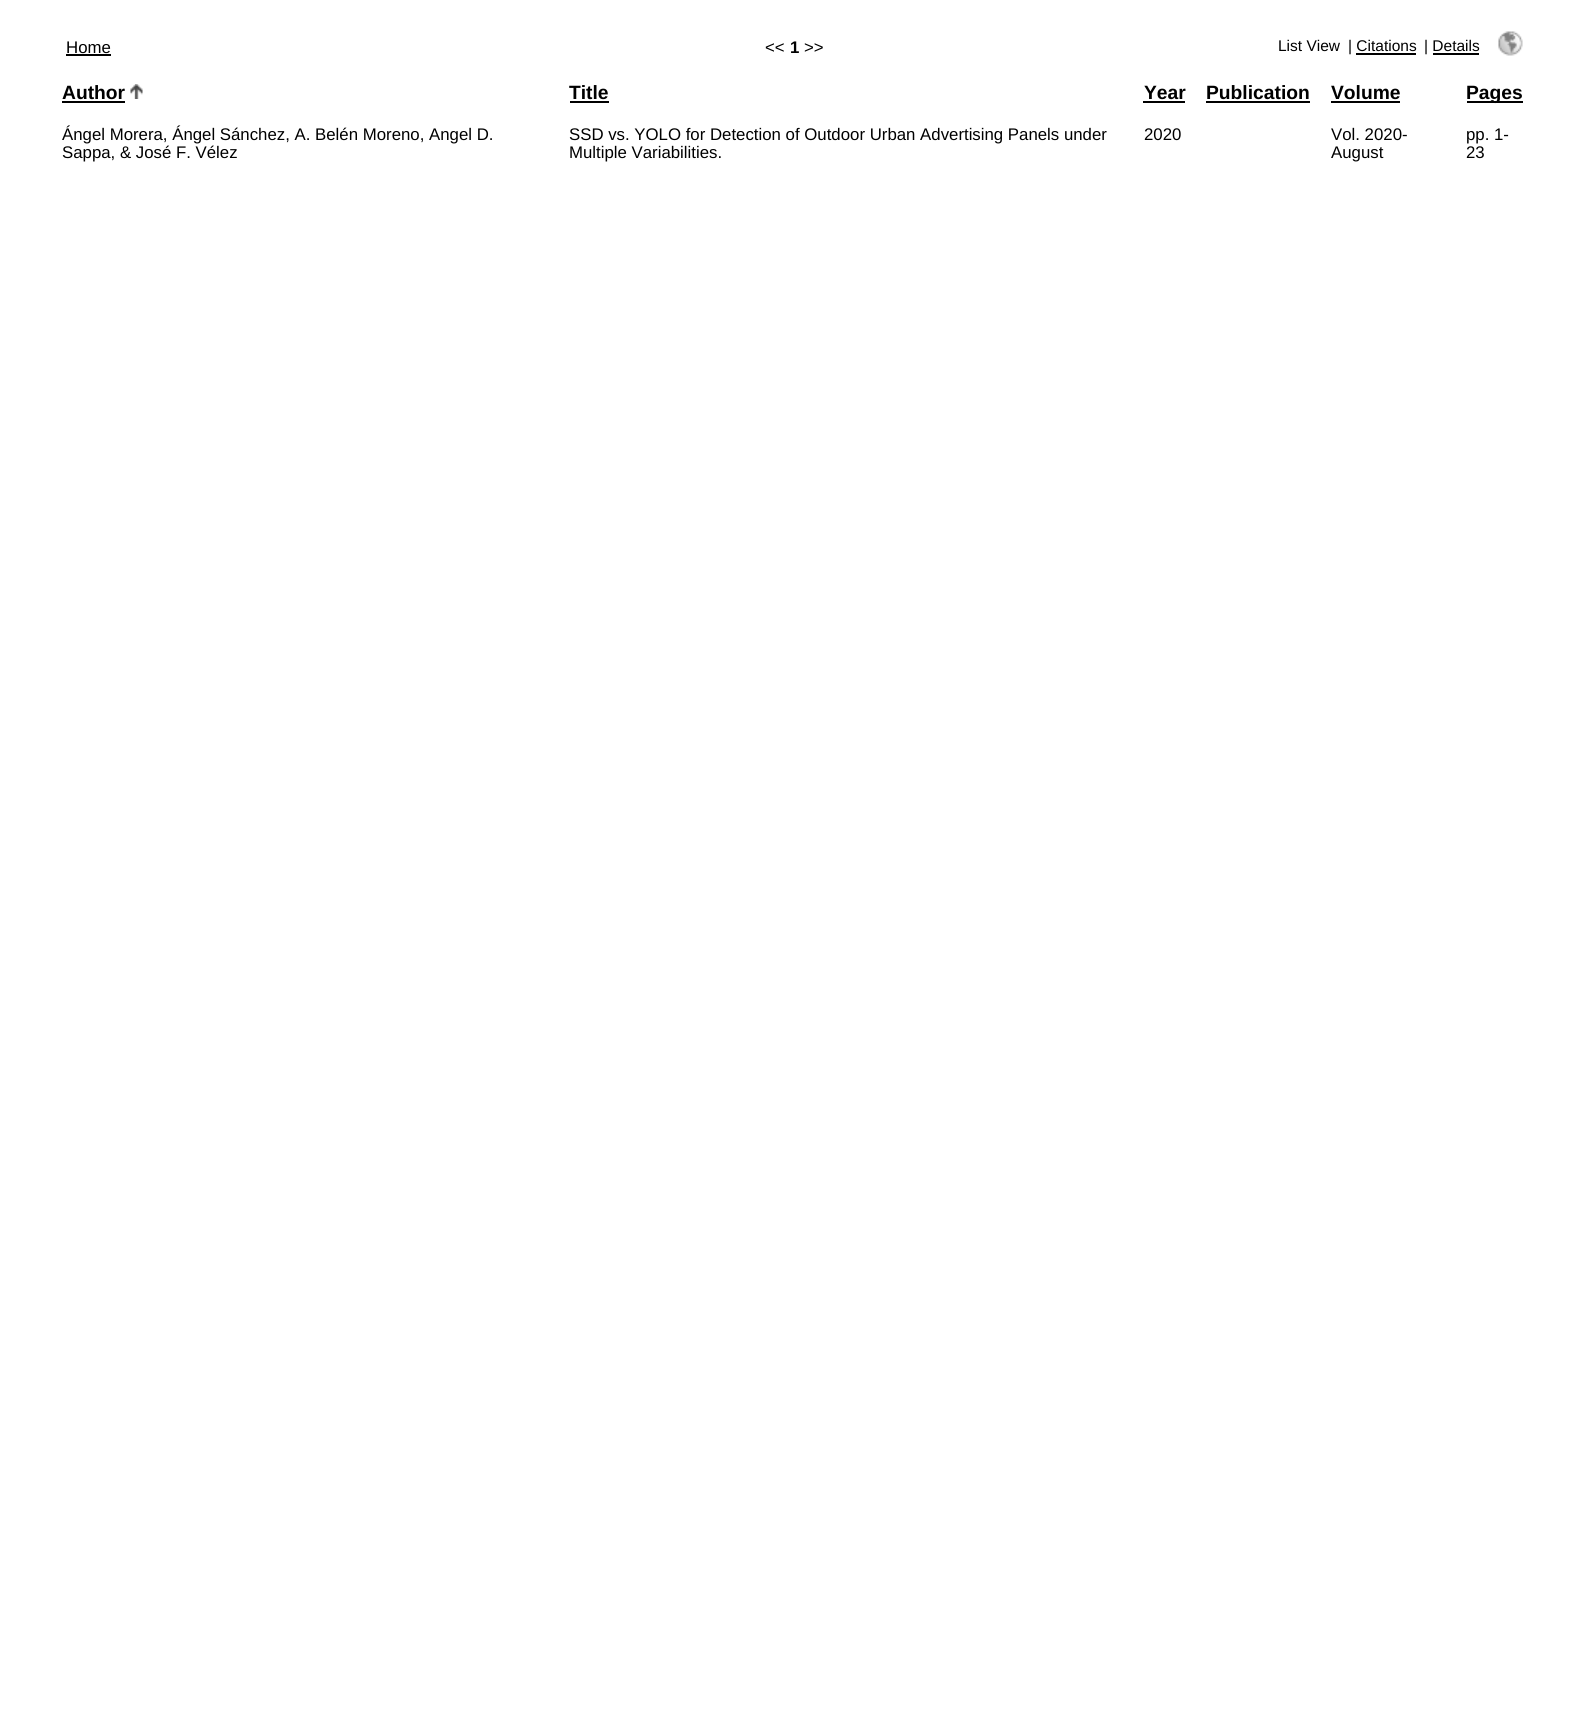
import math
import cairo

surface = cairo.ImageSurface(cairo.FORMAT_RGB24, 1588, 1736)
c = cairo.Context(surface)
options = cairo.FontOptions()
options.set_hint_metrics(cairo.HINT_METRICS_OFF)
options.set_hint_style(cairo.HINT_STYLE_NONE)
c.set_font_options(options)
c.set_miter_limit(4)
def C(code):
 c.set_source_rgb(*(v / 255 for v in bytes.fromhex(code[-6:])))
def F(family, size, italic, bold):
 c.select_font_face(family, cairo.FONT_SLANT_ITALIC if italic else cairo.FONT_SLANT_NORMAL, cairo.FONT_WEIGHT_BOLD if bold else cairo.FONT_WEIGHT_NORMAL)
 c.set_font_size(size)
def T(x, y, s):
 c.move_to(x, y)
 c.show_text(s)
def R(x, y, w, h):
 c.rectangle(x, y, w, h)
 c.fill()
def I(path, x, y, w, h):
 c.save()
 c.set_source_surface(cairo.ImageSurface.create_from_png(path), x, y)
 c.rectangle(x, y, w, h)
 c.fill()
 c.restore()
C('ffffff')
c.paint()
F('Liberation Sans',16.8,0,0)
C('000000')
T(66,53,'Home')
R(66,54,45,2)
T(765,53,'<<')
F('Liberation Sans',16.8,0,1)
T(790,53,'1')
F('Liberation Sans',16.8,0,0)
T(804,53,'>>')
F('Liberation Sans',15.5,0,0)
T(1278,51,'List View')
T(1348,51,'| Citations')
R(1356,53,60,2)
T(1424,51,'| Details')
R(1433,53,46,2)
I('1.png',1498,31,25,25)
F('Liberation Sans',19.25,0,1)
T(62,99,'Author')
R(62,101,63,2)
I('2.png',130,84,13,15)
T(569,99,'Title')
R(570,101,39,2)
T(1144,99,'Year')
R(1143,101,42,2)
T(1206,99,'Publication')
R(1206,101,104,2)
T(1331,99,'Volume')
R(1331,101,69,2)
R(1467,101,56,2)
T(1466,99,'Pages')
F('Liberation Sans',16.8,0,0)
T(62,140,'Ángel Morera, Ángel Sánchez, A. Belén Moreno, Angel D.')
T(62,158,'Sappa, & José F. Vélez')
T(569,140,'SSD vs. YOLO for Detection of Outdoor Urban Advertising Panels under')
T(569,158,'Multiple Variabilities.')
T(1144,140,'2020')
T(1331,140,'Vol. 2020-')
T(1331,158,'August')
T(1466,140,'pp. 1-')
T(1466,158,'23')
surface.write_to_png('o.png')
